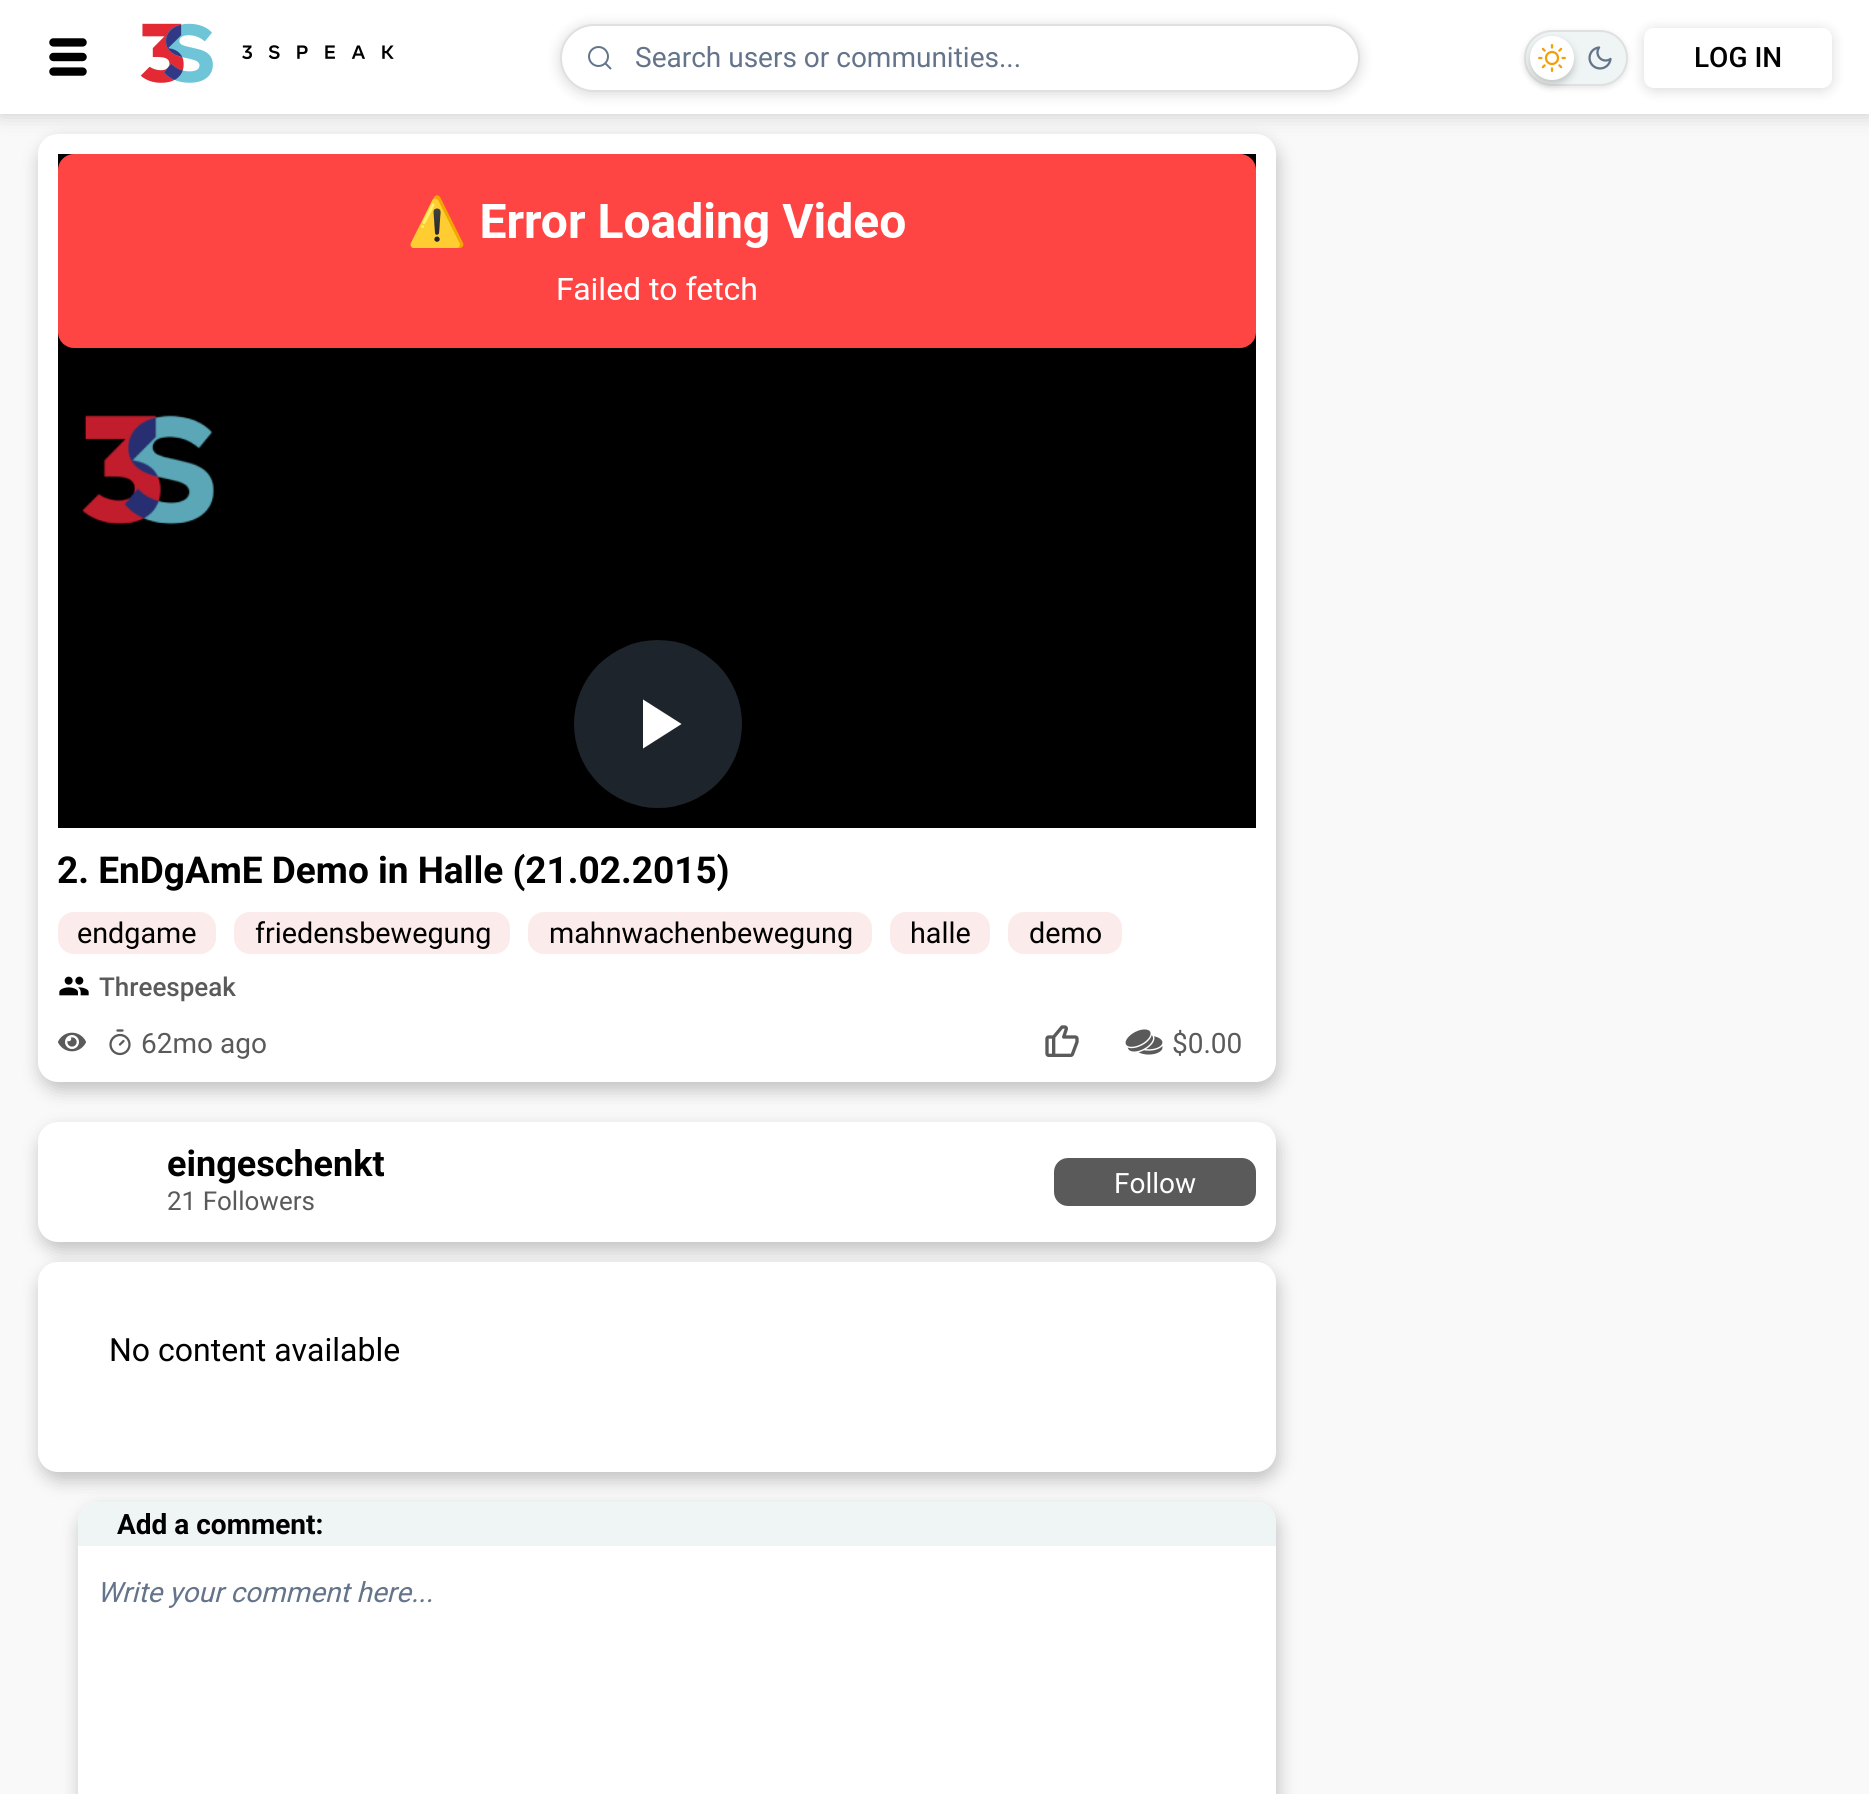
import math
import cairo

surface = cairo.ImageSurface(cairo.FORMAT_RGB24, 1869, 1794)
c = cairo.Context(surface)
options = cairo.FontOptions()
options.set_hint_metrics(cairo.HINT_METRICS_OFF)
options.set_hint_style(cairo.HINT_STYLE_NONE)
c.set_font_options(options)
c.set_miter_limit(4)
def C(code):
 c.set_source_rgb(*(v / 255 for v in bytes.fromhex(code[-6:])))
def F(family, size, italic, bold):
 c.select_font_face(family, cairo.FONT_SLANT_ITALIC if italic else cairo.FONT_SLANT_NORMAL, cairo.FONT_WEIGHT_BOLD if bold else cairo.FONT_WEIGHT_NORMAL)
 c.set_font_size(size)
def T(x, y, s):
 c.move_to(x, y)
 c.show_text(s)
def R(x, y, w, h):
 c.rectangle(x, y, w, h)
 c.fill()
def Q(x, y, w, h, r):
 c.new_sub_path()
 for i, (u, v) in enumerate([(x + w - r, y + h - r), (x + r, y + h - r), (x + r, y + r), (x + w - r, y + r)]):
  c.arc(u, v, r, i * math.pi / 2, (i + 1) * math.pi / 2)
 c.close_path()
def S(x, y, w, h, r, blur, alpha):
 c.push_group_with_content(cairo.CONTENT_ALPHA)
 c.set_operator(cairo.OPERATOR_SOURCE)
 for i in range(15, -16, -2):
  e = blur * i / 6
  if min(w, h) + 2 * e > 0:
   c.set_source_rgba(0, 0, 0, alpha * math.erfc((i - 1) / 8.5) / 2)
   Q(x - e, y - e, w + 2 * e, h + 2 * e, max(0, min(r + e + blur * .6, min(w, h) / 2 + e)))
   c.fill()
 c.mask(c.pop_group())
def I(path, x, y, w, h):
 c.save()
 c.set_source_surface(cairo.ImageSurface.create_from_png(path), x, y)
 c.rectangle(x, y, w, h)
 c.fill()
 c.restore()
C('f9f9f9')
c.paint()
C('000000')
S(40,142,1238,948,20,9,.23)
C('ffffff')
Q(38,134,1238,948,20)
c.fill()
C('000000')
S(0,0,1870,114,0,10,.2)
C('ffffff')
R(0,0,1869,114)
I('1.png',49,38,38,38)
I('2.png',140,23,254,60)
C('000000')
S(560,26,800,68,34,7,.15)
C('ffffff')
Q(561,25,798,66,33)
c.fill_preserve()
C('e0e0e0')
c.stroke()
c.arc(598.5,56.5,9.5,0,2 * math.pi)
C('64748b')
c.stroke()
c.new_path()
c.move_to(605.5,63.5)
c.line_to(610.5,68.5)
c.set_line_cap(cairo.LINE_CAP_ROUND)
c.set_line_join(cairo.LINE_JOIN_ROUND)
c.stroke()
F('Roboto',28,0,0)
T(635,67,'Search users or communities...')
C('000000')
S(1524,32,104,56,28,3,.1)
S(1644,30,188,60,10,7,.15)
C('eff4f5')
Q(1525,31,102,54,27)
c.fill_preserve()
C('e0e0e0')
c.set_line_cap(cairo.LINE_CAP_BUTT)
c.set_line_join(cairo.LINE_JOIN_MITER)
c.stroke()
C('000000')
S(1530,40,44,44,22,4,.2)
C('ffffff')
c.arc(1552,58,22,0,2 * math.pi)
c.fill()
I('3.png',1538,44,28,28)
I('4.png',1588,46,24,24)
Q(1644,28,188,60,10)
c.fill()
F('Roboto Medium',28,0,0)
C('000000')
T(1694,67,'LOG IN')
R(58,808,1198,20)
I('5.png',58,154,1198,654)
F('Roboto',37,0,1)
T(57,883,'2. EnDgAmE Demo in Halle (21.02.2015)')
C('fcebeb')
Q(58,912,158,42,16)
c.fill()
F('Roboto',28.75,0,0)
C('000000')
T(77,943,'endgame')
C('fcebeb')
Q(234,912,276,42,16)
c.fill()
C('000000')
T(255,943,'friedensbewegung')
C('fcebeb')
Q(528,912,344,42,16)
c.fill()
C('000000')
T(549,943,'mahnwachenbewegung')
C('fcebeb')
Q(890,912,100,42,16)
c.fill()
C('000000')
T(910,943,'halle')
C('fcebeb')
Q(1008,912,114,42,16)
c.fill()
C('000000')
T(1029,943,'demo')
I('6.png',59,976,30,20)
F('Roboto Medium',26,0,0)
C('5a5a5a')
T(99,996,'Threespeak')
I('7.png',58,1032,28,20)
c.new_path()
c.move_to(117.5,1030.5)
c.line_to(122.5,1030.5)
c.move_to(120,1044.5)
c.line_to(123.5,1041)
c.set_line_width(2.3)
c.set_line_cap(cairo.LINE_CAP_ROUND)
c.set_line_join(cairo.LINE_JOIN_ROUND)
c.stroke()
c.arc(120,1044.5,9.5,0,2 * math.pi)
c.set_line_cap(cairo.LINE_CAP_BUTT)
c.set_line_join(cairo.LINE_JOIN_MITER)
c.stroke()
F('Roboto',28,0,0)
T(141,1053,'62mo ago')
I('8.png',1045,1025,34,32)
I('9.png',1125,1029,38,26)
T(1172,1053,'$0.00')
C('000000')
S(40,1130,1238,120,20,9,.23)
C('ffffff')
Q(38,1122,1238,120,20)
c.fill()
F('Roboto',36,0,1)
C('000000')
T(167,1176,'eingeschenkt')
F('Roboto',26,0,0)
C('5a5a5a')
T(167,1210,'21 Followers')
Q(1054,1158,202,48,14)
c.fill()
F('Roboto',28,0,0)
C('ffffff')
T(1114,1193,'Follow')
C('000000')
S(40,1270,1238,210,20,9,.23)
C('ffffff')
Q(38,1262,1238,210,20)
c.fill()
F('Roboto',32,0,0)
C('000000')
T(109,1361,'No content available')
C('000000')
S(80,1510,1198,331,20,9,.23)
C('ffffff')
Q(78,1502,1198,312,20)
c.fill()
C('eff4f5')
c.new_path()
c.move_to(98,1502)
c.line_to(1256,1502)
c.curve_to(1267,1502,1276,1511,1276,1522)
c.line_to(1276,1546)
c.line_to(78,1546)
c.line_to(78,1522)
c.curve_to(78,1511,87,1502,98,1502)
c.close_path()
c.fill()
F('Roboto',28,0,1)
C('000000')
T(117,1534,'Add a comment:')
F('Roboto',28,1,0)
C('64748b')
T(97,1602,'Write your comment here...')
surface.write_to_png('o.png')
